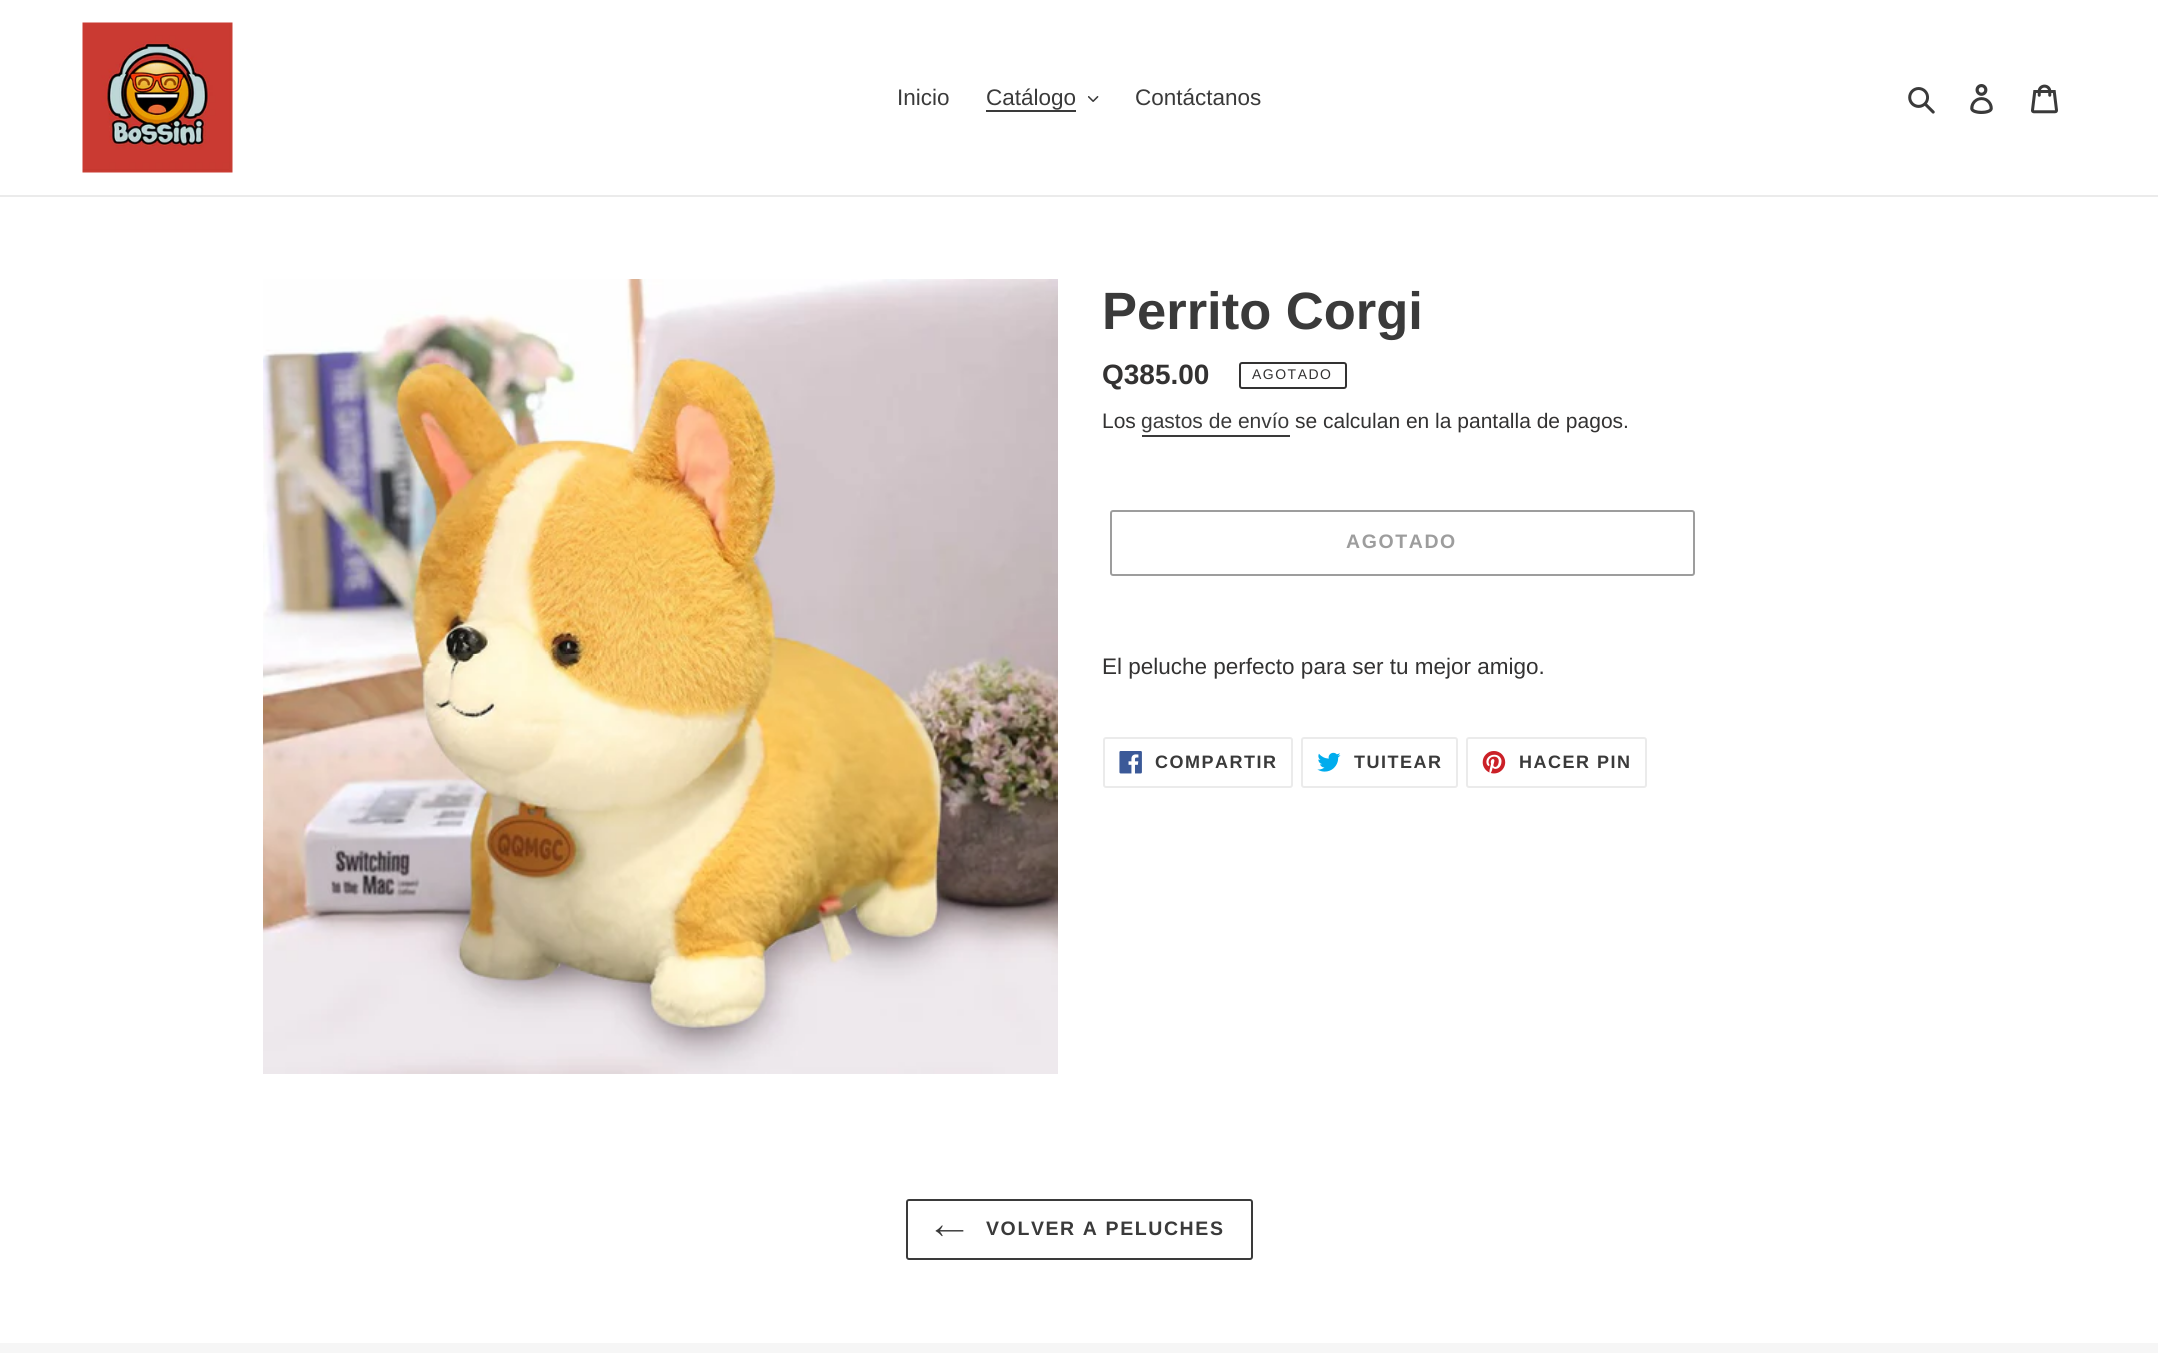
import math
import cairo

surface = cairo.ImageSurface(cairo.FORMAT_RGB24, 2158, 1353)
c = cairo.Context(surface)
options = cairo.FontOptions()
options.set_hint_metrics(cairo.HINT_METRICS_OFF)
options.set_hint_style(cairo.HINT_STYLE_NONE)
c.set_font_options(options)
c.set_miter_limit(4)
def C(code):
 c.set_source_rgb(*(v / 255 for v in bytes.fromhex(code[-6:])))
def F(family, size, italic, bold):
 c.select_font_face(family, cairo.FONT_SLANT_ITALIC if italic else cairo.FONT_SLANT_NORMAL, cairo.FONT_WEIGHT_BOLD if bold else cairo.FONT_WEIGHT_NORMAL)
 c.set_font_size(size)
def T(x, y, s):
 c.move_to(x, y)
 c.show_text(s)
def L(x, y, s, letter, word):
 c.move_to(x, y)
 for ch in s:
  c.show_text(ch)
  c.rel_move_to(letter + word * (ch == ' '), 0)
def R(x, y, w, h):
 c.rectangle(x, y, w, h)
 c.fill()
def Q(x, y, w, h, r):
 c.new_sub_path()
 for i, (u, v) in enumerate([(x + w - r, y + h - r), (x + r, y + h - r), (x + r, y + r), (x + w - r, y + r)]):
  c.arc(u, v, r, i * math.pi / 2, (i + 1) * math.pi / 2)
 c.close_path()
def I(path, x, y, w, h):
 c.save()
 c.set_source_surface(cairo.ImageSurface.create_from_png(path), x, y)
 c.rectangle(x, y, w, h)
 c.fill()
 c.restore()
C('ffffff')
c.paint()
C('ebebeb')
R(0,195,2158,2)
I('1.png',82,22,151,151)
F('Liberation Sans',22.5,0,0)
C('3a3a3a')
T(897,105,'Inicio')
T(986,105,'Catálogo')
R(986,110,90,2)
I('2.png',1088,96,11,6)
T(1135,105,'Contáctanos')
I('3.png',1908,87,27,27)
I('4.png',1970,84,23,30)
I('5.png',2031,84,27,30)
I('6.png',263,279,795,795)
F('Liberation Sans',52.5,0,1)
T(1102,329,'Perrito Corgi')
F('Liberation Sans',28,0,1)
C('333232')
T(1102,384,'Q385.00')
Q(1240,363,106,25,2)
c.stroke()
F('Liberation Sans',14,0,0)
L(1252,379,'AGOTADO',1.5,0)
F('Liberation Sans',21,0,0)
T(1102,428,'Los')
C('3a3a3a')
T(1141,428,'gastos de envío')
R(1142,435,148,2)
C('333232')
T(1295,428,'se calculan en la pantalla de pagos.')
Q(1111,511,583,64,2)
C('9d9d9d')
c.stroke()
F('Liberation Sans',19.5,0,1)
L(1346,548,'AGOTADO',1.6,0)
F('Liberation Sans',22.5,0,0)
C('333232')
T(1102,674,'El peluche perfecto para ser tu mejor amigo.')
Q(1104,738,188,49,2)
C('ebebeb')
c.stroke()
I('7.png',1119,751,23,23)
F('Liberation Sans',18,0,1)
C('3a3a3a')
L(1155,768,'COMPARTIR',1.5,0)
Q(1302,738,155,49,2)
C('ebebeb')
c.stroke()
I('8.png',1317,752,24,20)
C('3a3a3a')
L(1354,768,'TUITEAR',1.5,0)
Q(1467,738,179,49,2)
C('ebebeb')
c.stroke()
I('9.png',1482,751,24,23)
C('3a3a3a')
L(1519,768,'HACER PIN',1.5,0)
Q(907,1200,345,59,2)
c.stroke()
I('10.png',935,1225,29,12)
F('Liberation Sans',19.5,0,1)
L(986,1235,'VOLVER A PELUCHES',1.6,0)
C('f6f6f6')
R(0,1343,2158,10)
surface.write_to_png('o.png')
